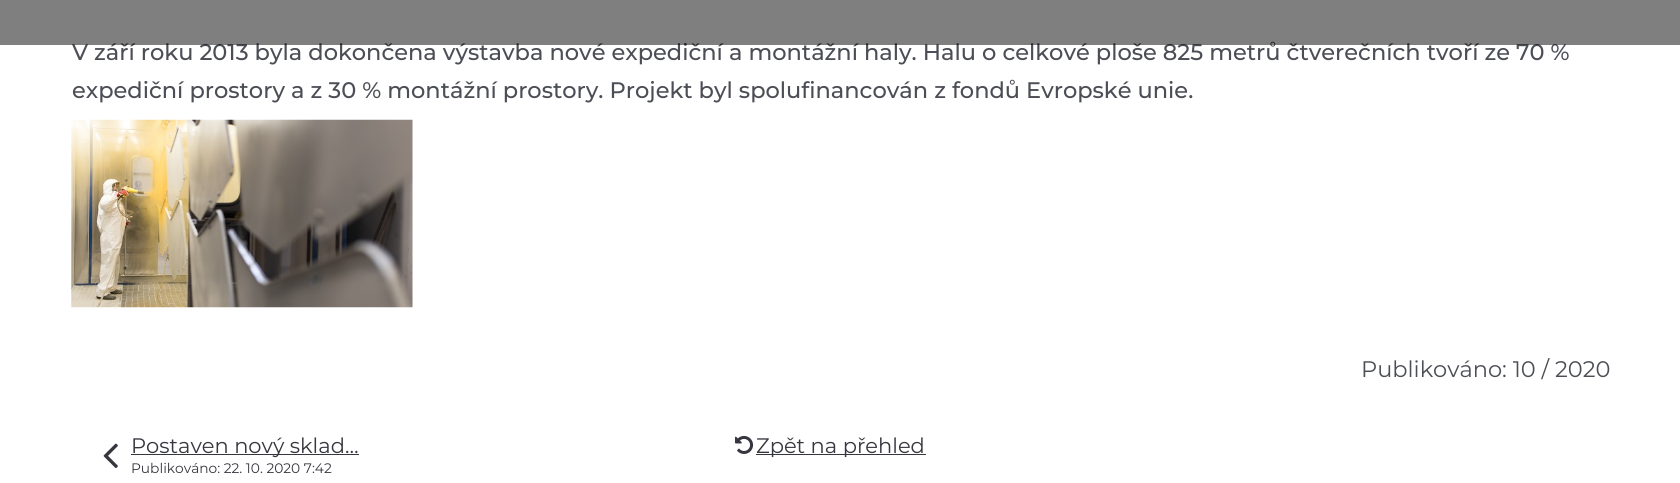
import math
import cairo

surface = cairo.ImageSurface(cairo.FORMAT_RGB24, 1680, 483)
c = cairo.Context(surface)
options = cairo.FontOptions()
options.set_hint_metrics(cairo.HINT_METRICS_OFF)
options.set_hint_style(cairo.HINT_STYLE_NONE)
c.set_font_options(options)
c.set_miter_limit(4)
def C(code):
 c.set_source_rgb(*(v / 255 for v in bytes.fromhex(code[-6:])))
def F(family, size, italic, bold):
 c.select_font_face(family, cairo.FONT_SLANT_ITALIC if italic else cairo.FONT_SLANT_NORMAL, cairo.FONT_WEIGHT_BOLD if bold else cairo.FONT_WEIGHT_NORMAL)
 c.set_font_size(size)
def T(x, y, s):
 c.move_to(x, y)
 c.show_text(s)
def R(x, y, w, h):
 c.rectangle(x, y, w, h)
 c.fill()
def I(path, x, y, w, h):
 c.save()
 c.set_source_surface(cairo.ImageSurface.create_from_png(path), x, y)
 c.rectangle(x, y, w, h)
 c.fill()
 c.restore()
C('ffffff')
c.paint()
F('Montserrat Medium',22.5,0,0)
C('4c4e55')
T(72,60,'V září roku 2013 byla dokončena výstavba nové expediční a montážní haly. Halu o celkové ploše 825 metrů čtverečních tvoří ze 70 %')
c.set_source_rgba(0,0,0,0.5)
R(0,0,1680,45)
C('4c4e55')
T(72,98,'expediční prostory a z 30 % montážní prostory. Projekt byl spolufinancován z fondů Evropské unie.')
I('1.png',71,119,342,189)
F('Montserrat',22.5,0,0)
T(1361,377,'Publikováno: 10 / 2020')
I('2.png',103,443,15,25)
C('36373e')
R(131,454,228,1)
F('Montserrat',21,0,0)
T(131,453,'Postaven nový sklad…')
F('Montserrat',13.75,0,0)
T(131,473,'Publikováno: 22. 10. 2020 7:42')
I('3.png',735,435,19,19)
R(756,454,170,1)
F('Montserrat',21,0,0)
T(756,453,'Zpět na přehled')
surface.write_to_png('o.png')
